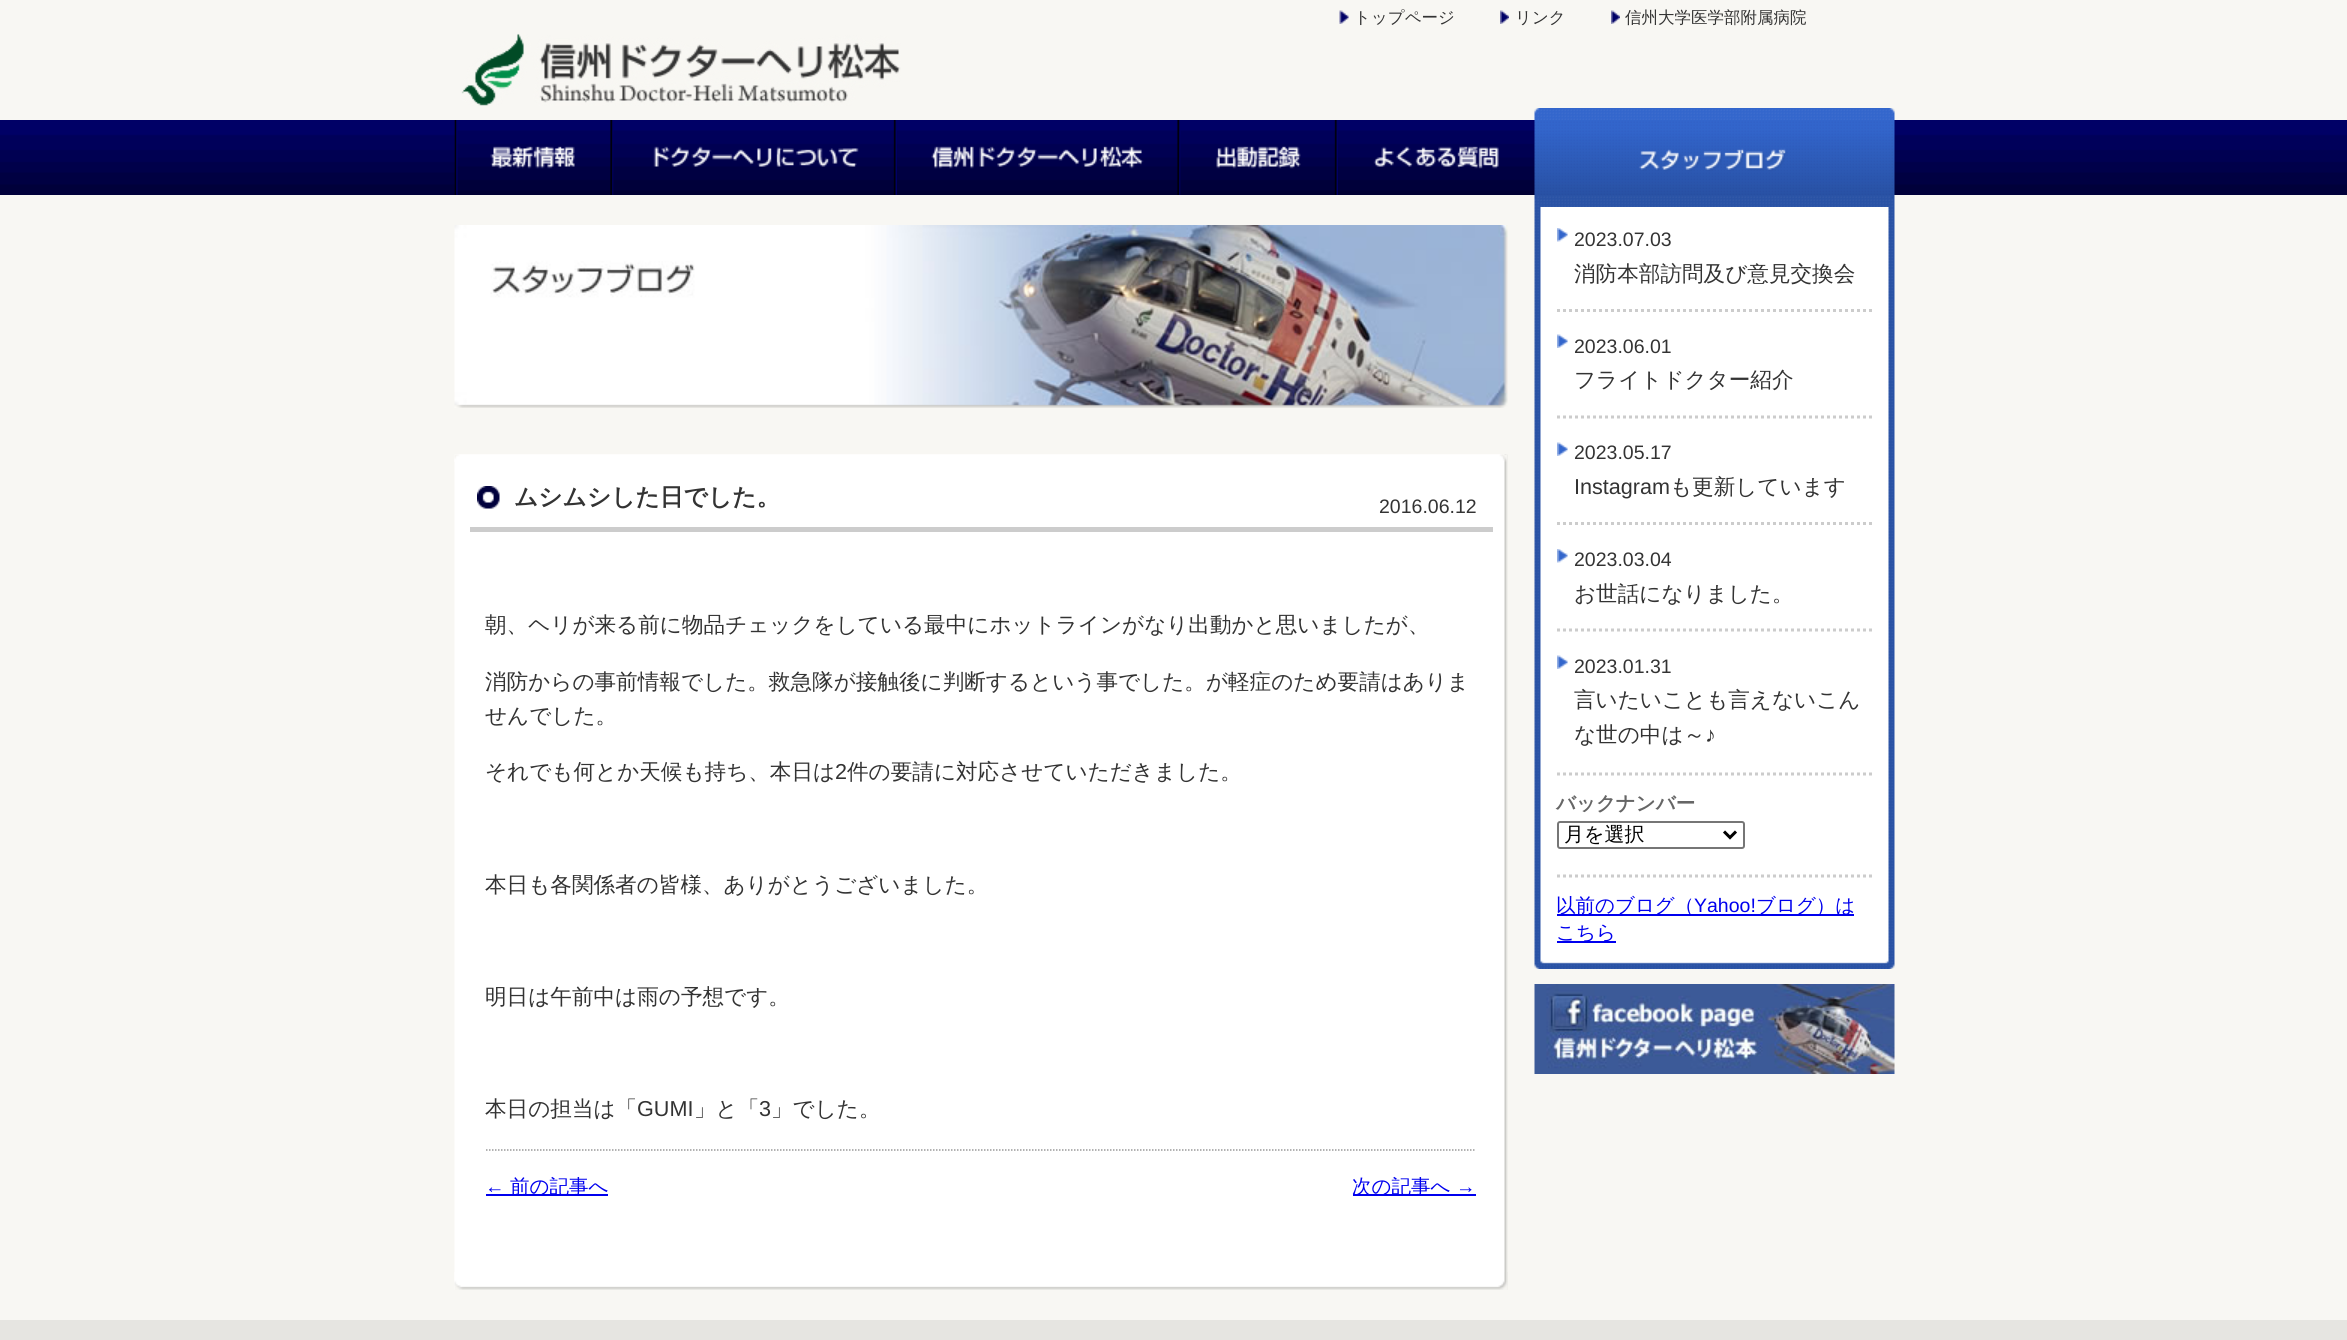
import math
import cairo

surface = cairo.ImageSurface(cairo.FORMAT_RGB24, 2347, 1340)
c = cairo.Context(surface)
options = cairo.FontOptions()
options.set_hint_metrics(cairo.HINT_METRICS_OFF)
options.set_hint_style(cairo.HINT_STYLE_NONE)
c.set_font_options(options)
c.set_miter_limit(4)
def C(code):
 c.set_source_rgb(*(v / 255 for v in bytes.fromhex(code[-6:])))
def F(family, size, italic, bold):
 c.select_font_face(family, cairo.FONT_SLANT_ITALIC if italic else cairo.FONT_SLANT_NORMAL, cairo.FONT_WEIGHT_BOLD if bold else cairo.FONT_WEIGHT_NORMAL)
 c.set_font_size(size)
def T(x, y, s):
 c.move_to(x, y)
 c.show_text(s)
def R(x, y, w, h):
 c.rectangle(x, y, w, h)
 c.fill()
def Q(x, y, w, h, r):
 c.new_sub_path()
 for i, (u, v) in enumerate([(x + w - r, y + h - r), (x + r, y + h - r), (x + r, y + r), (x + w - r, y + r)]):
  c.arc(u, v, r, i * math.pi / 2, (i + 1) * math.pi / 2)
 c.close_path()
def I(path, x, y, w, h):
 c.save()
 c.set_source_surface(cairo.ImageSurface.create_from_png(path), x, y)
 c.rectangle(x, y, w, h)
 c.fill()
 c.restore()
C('f8f7f3')
c.paint()
I('1.png',1339,10,10,14)
F('WenQuanYi Zen Hei Medium',16.5,0,0)
C('333333')
T(1354,23,'トップページ')
I('2.png',1500,10,9,14)
T(1515,23,'リンク')
I('3.png',1611,10,9,14)
T(1625,23,'信州大学医学部附属病院')
I('4.png',461,33,440,73)
I('5.png',0,120,2347,75)
I('6.png',454,120,160,75)
I('7.png',613,120,284,75)
I('8.png',897,120,284,75)
I('9.png',1180,120,158,75)
I('10.png',1338,130,196,65)
I('11.png',454,225,1054,183)
I('12.png',454,454,1054,836)
I('13.png',454,454,1053,8)
I('14.png',477,486,23,23)
C('cccccc')
R(470,527,1023,5)
F('WenQuanYi Zen Hei',23.75,0,1)
C('333333')
T(514,505,'ムシムシした日でした。')
F('Liberation Sans',19.5,0,0)
T(1379,513,'2016.06.12')
I('15.png',454,1272,1054,18)
F('WenQuanYi Zen Hei Medium',21.6,0,0)
T(485,632,'朝、ヘリが来る前に物品チェックをしている最中にホットラインがなり出動かと思いましたが、')
T(485,689,'消防からの事前情報でした。救急隊が接触後に判断するという事でした。が軽症のため要請はありま')
T(485,723,'せんでした。')
T(485,779,'それでも何とか天候も持ち、本日は')
F('Liberation Sans',21.6,0,0)
T(835,779,'2')
F('WenQuanYi Zen Hei Medium',21.6,0,0)
T(847,779,'件の要請に対応させていただきました。')
T(485,892,'本日も各関係者の皆様、ありがとうございました。')
T(485,1004,'明日は午前中は雨の予想です。')
T(485,1116,'本日の担当は「')
F('Liberation Sans',21.6,0,0)
T(637,1116,'GUMI')
F('WenQuanYi Zen Hei Medium',21.6,0,0)
T(694,1116,'」と「')
F('Liberation Sans',21.6,0,0)
T(759,1116,'3')
F('WenQuanYi Zen Hei Medium',21.6,0,0)
T(771,1116,'」でした。')
c.new_path()
c.move_to(486,1150)
c.line_to(1476,1150)
C('999999')
c.set_line_width(1.5)
c.set_dash([1.5,1.5])
c.stroke()
F('Liberation Sans',19.5,0,0)
C('0000ee')
T(485,1193,'←')
R(486,1194,122,2)
F('WenQuanYi Zen Hei Medium',19.5,0,0)
T(510,1193,'前の記事へ')
R(1353,1194,123,2)
T(1352,1193,'次の記事へ')
F('Liberation Sans',19.5,0,0)
T(1456,1193,'→')
I('16.png',1534,108,361,99)
I('17.png',1534,207,361,762)
I('18.png',1557,228,11,14)
c.new_path()
c.move_to(1557,310.5)
c.line_to(1872,310.5)
C('cccccc')
c.set_line_width(3)
c.set_dash([3,3])
c.stroke()
C('333333')
T(1574,246,'2023.07.03')
F('WenQuanYi Zen Hei Medium',21.6,0,0)
T(1574,281,'消防本部訪問及び意見交換会')
I('19.png',1557,334,11,14)
c.new_path()
c.move_to(1557,417)
c.line_to(1872,417)
C('cccccc')
c.stroke()
F('Liberation Sans',19.5,0,0)
C('333333')
T(1574,353,'2023.06.01')
F('WenQuanYi Zen Hei Medium',21.6,0,0)
T(1574,387,'フライトドクター紹介')
I('19.png',1557,442,11,14)
c.new_path()
c.move_to(1557,523.5)
c.line_to(1872,523.5)
C('cccccc')
c.stroke()
F('Liberation Sans',19.5,0,0)
C('333333')
T(1574,459,'2023.05.17')
F('Liberation Sans',21.6,0,0)
T(1574,494,'Instagram')
F('WenQuanYi Zen Hei Medium',21.6,0,0)
T(1670,494,'も更新しています')
I('18.png',1557,549,11,14)
c.new_path()
c.move_to(1557,630)
c.line_to(1872,630)
C('cccccc')
c.stroke()
F('Liberation Sans',19.5,0,0)
C('333333')
T(1574,566,'2023.03.04')
F('WenQuanYi Zen Hei Medium',21.6,0,0)
T(1574,601,'お世話になりました。')
I('19.png',1557,655,11,14)
F('Liberation Sans',19.5,0,0)
T(1574,673,'2023.01.31')
F('WenQuanYi Zen Hei Medium',21.6,0,0)
T(1574,707,'言いたいことも言えないこん')
T(1574,742,'な世の中は～')
F('Liberation Sans',21.6,0,0)
T(1705,742,'♪')
c.new_path()
c.move_to(1557,774)
c.line_to(1872,774)
C('cccccc')
c.stroke()
F('WenQuanYi Zen Hei',19.5,0,1)
C('666666')
T(1556,810,'バックナンバー')
Q(1558,822,186,26,2)
C('767676')
c.set_line_width(2)
c.set_dash([])
c.stroke()
c.new_path()
c.move_to(1724,831.5)
c.line_to(1730,837.5)
c.line_to(1736,831.5)
C('000000')
c.set_line_width(3)
c.stroke()
F('WenQuanYi Zen Hei Medium',20,0,0)
T(1564,841,'月を選択')
c.new_path()
c.move_to(1557,876)
c.line_to(1872,876)
C('cccccc')
c.set_dash([3,3])
c.stroke()
C('0000ee')
R(1557,914,297,2)
F('WenQuanYi Zen Hei Medium',19.5,0,0)
T(1556,912,'以前のブログ（')
F('Liberation Sans',19.5,0,0)
T(1694,912,'Yahoo!')
F('WenQuanYi Zen Hei Medium',19.5,0,0)
T(1756,912,'ブログ）は')
R(1557,941,59,2)
T(1556,939,'こちら')
I('20.png',1534,984,361,90)
C('e6e5e1')
R(0,1320,2347,20)
surface.write_to_png('o.png')
